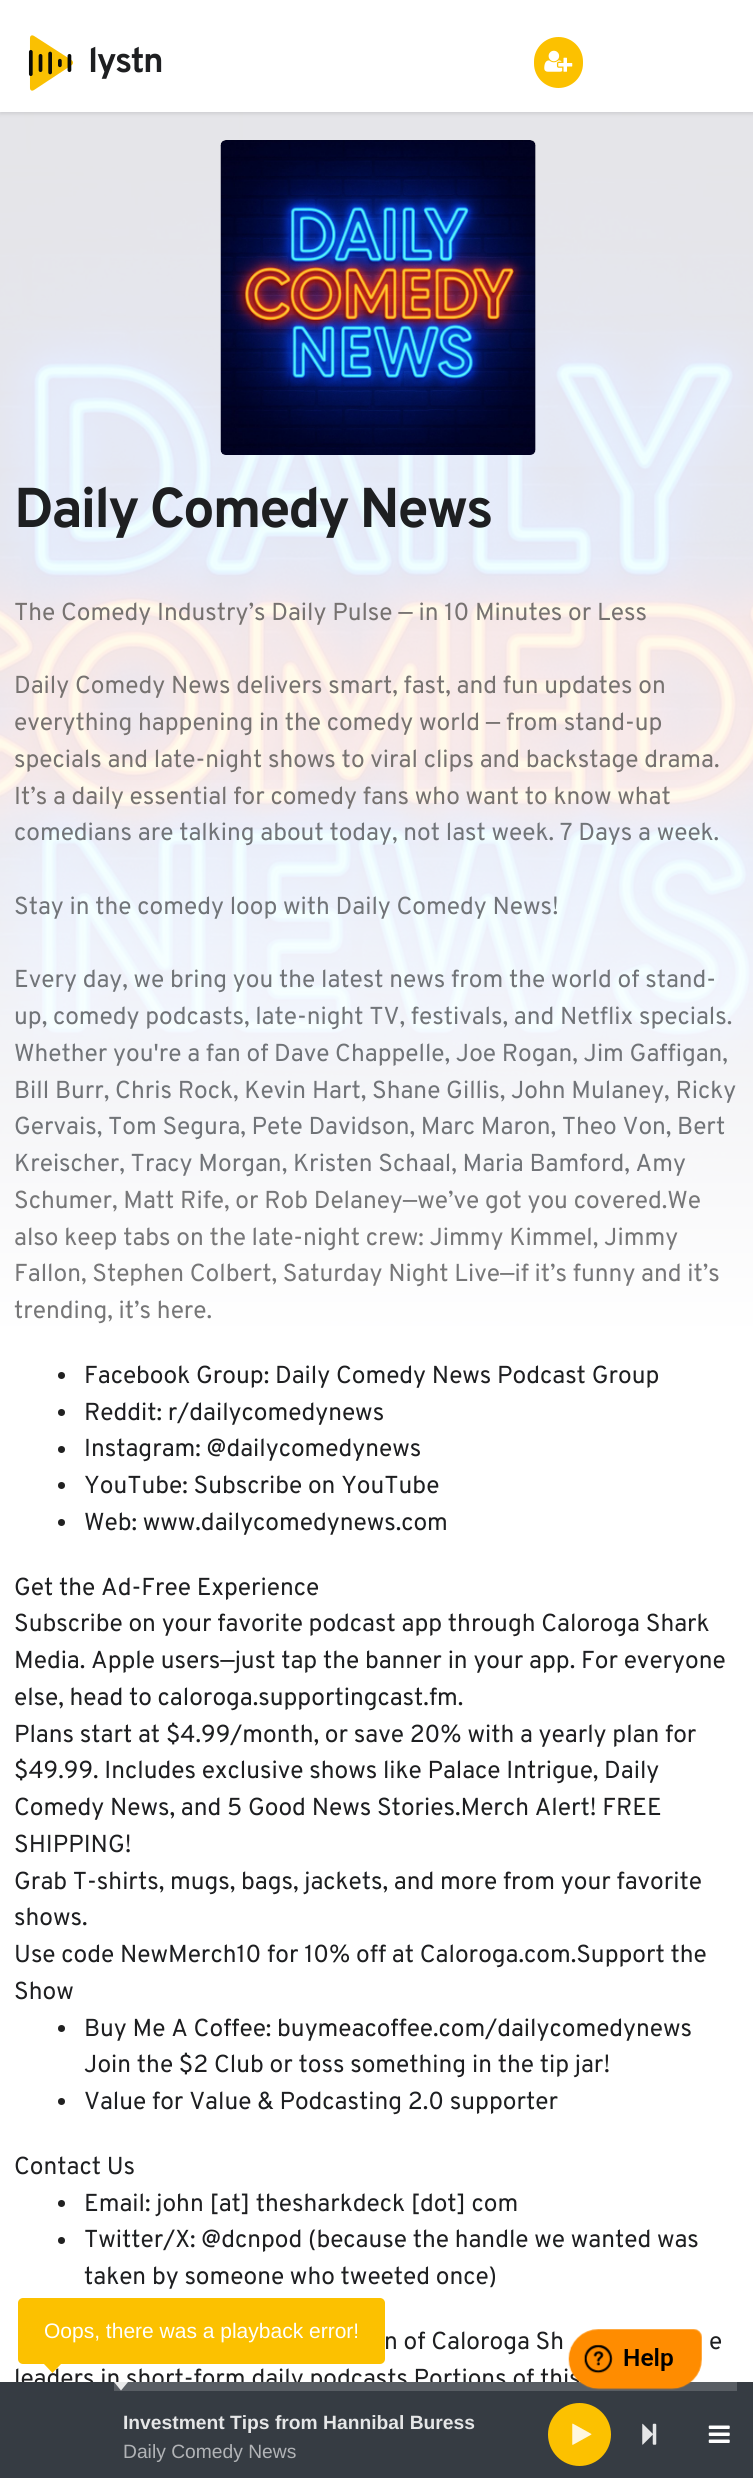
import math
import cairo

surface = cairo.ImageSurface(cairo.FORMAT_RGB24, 753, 2478)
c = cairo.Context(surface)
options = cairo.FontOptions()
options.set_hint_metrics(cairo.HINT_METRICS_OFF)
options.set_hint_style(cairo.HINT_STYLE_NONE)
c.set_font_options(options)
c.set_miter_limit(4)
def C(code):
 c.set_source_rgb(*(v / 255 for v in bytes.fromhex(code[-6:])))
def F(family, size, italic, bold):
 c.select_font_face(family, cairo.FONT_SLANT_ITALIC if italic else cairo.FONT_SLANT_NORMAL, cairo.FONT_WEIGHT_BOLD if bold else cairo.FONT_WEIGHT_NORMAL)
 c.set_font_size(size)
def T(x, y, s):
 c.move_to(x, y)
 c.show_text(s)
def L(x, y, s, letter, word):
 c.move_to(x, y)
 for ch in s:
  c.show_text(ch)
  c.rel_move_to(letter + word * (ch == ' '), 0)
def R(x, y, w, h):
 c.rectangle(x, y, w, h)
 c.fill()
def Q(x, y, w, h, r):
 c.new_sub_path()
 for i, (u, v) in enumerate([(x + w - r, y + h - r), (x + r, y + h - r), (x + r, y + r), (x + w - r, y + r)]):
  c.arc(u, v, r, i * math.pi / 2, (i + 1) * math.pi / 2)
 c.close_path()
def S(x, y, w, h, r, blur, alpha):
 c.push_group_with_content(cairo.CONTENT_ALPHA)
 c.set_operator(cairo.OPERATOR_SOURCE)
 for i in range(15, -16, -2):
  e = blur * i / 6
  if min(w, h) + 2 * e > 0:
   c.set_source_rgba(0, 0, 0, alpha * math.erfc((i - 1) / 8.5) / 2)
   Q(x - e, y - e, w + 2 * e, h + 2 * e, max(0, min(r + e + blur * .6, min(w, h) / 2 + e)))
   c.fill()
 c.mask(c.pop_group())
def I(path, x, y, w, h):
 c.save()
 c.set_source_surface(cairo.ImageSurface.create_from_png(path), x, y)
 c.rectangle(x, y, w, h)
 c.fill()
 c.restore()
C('ffffff')
c.paint()
I('3.png',0,112,753,1221)
C('000000')
S(0,2,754,112,0,2,.1)
C('ffffff')
R(0,0,753,112)
I('1.png',28,35,45,56)
F('Overpass',35,0,1)
C('1e1f21')
L(88,72,'lystn',-1.5,0)
C('fcc100')
Q(534,37,49,51,24.5)
c.fill()
I('2.png',544,50,29,22)
gradient = cairo.LinearGradient(377,718,377,1337)
gradient.add_color_stop_rgba(0,1,1,1,0)
gradient.add_color_stop_rgba(1,1,1,1,1)
c.set_source(gradient)
R(0,780,753,553)
c.set_source_rgba(0.471,0.471,0.471,0.2)
Q(221,140,315,315,5)
c.fill()
I('4.png',220,140,316,315)
F('Overpass',56,0,1)
C('1e1f21')
L(14,527,'Daily Comedy News',-2.25,0)
F('Overpass',24.5,0,0)
C('767270')
T(14,620,'The Comedy Industry’s Daily Pulse — in 10 Minutes or Less')
T(14,693,'Daily Comedy News delivers smart, fast, and fun updates on')
T(14,730,'everything happening in the comedy world — from stand-up')
T(14,767,'specials and late-night shows to viral clips and backstage drama.')
T(14,804,'It’s a daily essential for comedy fans who want to know what')
C('717478')
T(14,840,'comedians are talking about today, not last week. 7 Days a week.')
T(14,914,'Stay in the comedy loop with Daily Comedy News!')
T(14,987,'Every day, we bring you the latest news from the world of stand-')
T(14,1024,'up, comedy podcasts, late-night TV, festivals, and Netflix specials.')
T(14,1061,'Whether you\'re a fan of Dave Chappelle, Joe Rogan, Jim Gaffigan,')
T(14,1098,'Bill Burr, Chris Rock, Kevin Hart, Shane Gillis, John Mulaney, Ricky')
T(14,1134,'Gervais, Tom Segura, Pete Davidson, Marc Maron, Theo Von, Bert')
T(14,1171,'Kreischer, Tracy Morgan, Kristen Schaal, Maria Bamford, Amy')
C('777778')
T(14,1208,'Schumer, Matt Rife, or Rob Delaney—we’ve got you covered.We')
T(14,1245,'also keep tabs on the late-night crew: Jimmy Kimmel, Jimmy')
T(14,1281,'Fallon, Stephen Colbert, Saturday Night Live—if it’s funny and it’s')
T(14,1318,'trending, it’s here.')
C('212121')
c.new_path()
c.arc(61.5,1375.5,3.5,0,2 * math.pi)
c.fill()
C('1e1f21')
T(84,1383,'Facebook Group: Daily Comedy News Podcast Group')
C('212121')
c.new_path()
c.arc(61.5,1412.5,3.5,0,2 * math.pi)
c.fill()
C('1e1f21')
T(84,1420,'Reddit: r/dailycomedynews')
C('212121')
c.new_path()
c.arc(61.5,1449.5,3.5,0,2 * math.pi)
c.fill()
C('1e1f21')
T(84,1456,'Instagram: @dailycomedynews')
C('212121')
c.new_path()
c.arc(61.5,1485.5,3.5,0,2 * math.pi)
c.fill()
C('1e1f21')
T(84,1493,'YouTube: Subscribe on YouTube')
C('212121')
c.new_path()
c.arc(61.5,1522.5,3.5,0,2 * math.pi)
c.fill()
C('1e1f21')
T(84,1530,'Web: www.dailycomedynews.com')
T(14,1595,'Get the Ad-Free Experience')
T(14,1631,'Subscribe on your favorite podcast app through Caloroga Shark')
T(14,1668,'Media. Apple users—just tap the banner in your app. For everyone')
T(14,1705,'else, head to caloroga.supportingcast.fm.')
T(14,1742,'Plans start at $4.99/month, or save 20% with a yearly plan for')
T(14,1778,'$49.99. Includes exclusive shows like Palace Intrigue, Daily')
T(14,1815,'Comedy News, and 5 Good News Stories.Merch Alert! FREE')
T(14,1852,'SHIPPING!')
T(14,1889,'Grab T-shirts, mugs, bags, jackets, and more from your favorite')
T(14,1925,'shows.')
T(14,1962,'Use code NewMerch10 for 10% off at Caloroga.com.Support the')
T(14,1999,'Show')
C('212121')
c.new_path()
c.arc(61.5,2028.5,3.5,0,2 * math.pi)
c.fill()
C('1e1f21')
T(84,2036,'Buy Me A Coffee: buymeacoffee.com/dailycomedynews')
T(84,2072,'Join the $2 Club or toss something in the tip jar!')
C('212121')
c.new_path()
c.arc(61.5,2101.5,3.5,0,2 * math.pi)
c.fill()
C('1e1f21')
T(84,2109,'Value for Value & Podcasting 2.0 supporter')
T(14,2174,'Contact Us')
C('212121')
c.new_path()
c.arc(61.5,2203.5,3.5,0,2 * math.pi)
c.fill()
C('1e1f21')
T(84,2211,'Email: john [at] thesharkdeck [dot] com')
C('212121')
c.new_path()
c.arc(61.5,2240.5,3.5,0,2 * math.pi)
c.fill()
C('1e1f21')
T(84,2247,'Twitter/X: @dcnpod (because the handle we wanted was')
T(84,2284,'taken by someone who tweeted once)')
T(384,2349,'n of Caloroga Sh')
T(709,2349,'e')
T(14,2386,'leaders in short-form daily podcasts.Portions of this')
C('363c43')
R(0,2382,753,96)
C('fcc100')
Q(18,2298,367,66,5)
c.fill()
F('Liberation Sans',21,0,0)
C('ffffff')
T(44,2338,'Oops, there was a playback error!')
C('fcc100')
c.new_path()
c.move_to(44,2364)
c.line_to(61,2364)
c.line_to(52.5,2373)
c.close_path()
c.fill()
F('Liberation Sans',19.25,0,1)
C('e5e6e7')
T(123,2429,'Investment Tips from Hannibal Buress')
F('Liberation Sans',19.25,0,0)
C('b1b3b6')
T(123,2458,'Daily Comedy News')
C('595e64')
R(114,2382,623,9)
C('e9eaeb')
c.new_path()
c.move_to(114,2382)
c.line_to(128,2382)
c.line_to(121,2390.5)
c.close_path()
c.fill()
C('fcc100')
c.arc(579.5,2434.5,31.5,0,2 * math.pi)
c.fill()
I('5.png',572,2423,20,22)
I('6.png',642,2423,15,22)
I('7.png',708,2425,22,18)
I('8.png',568,2329,134,61)
surface.write_to_png('o.png')
